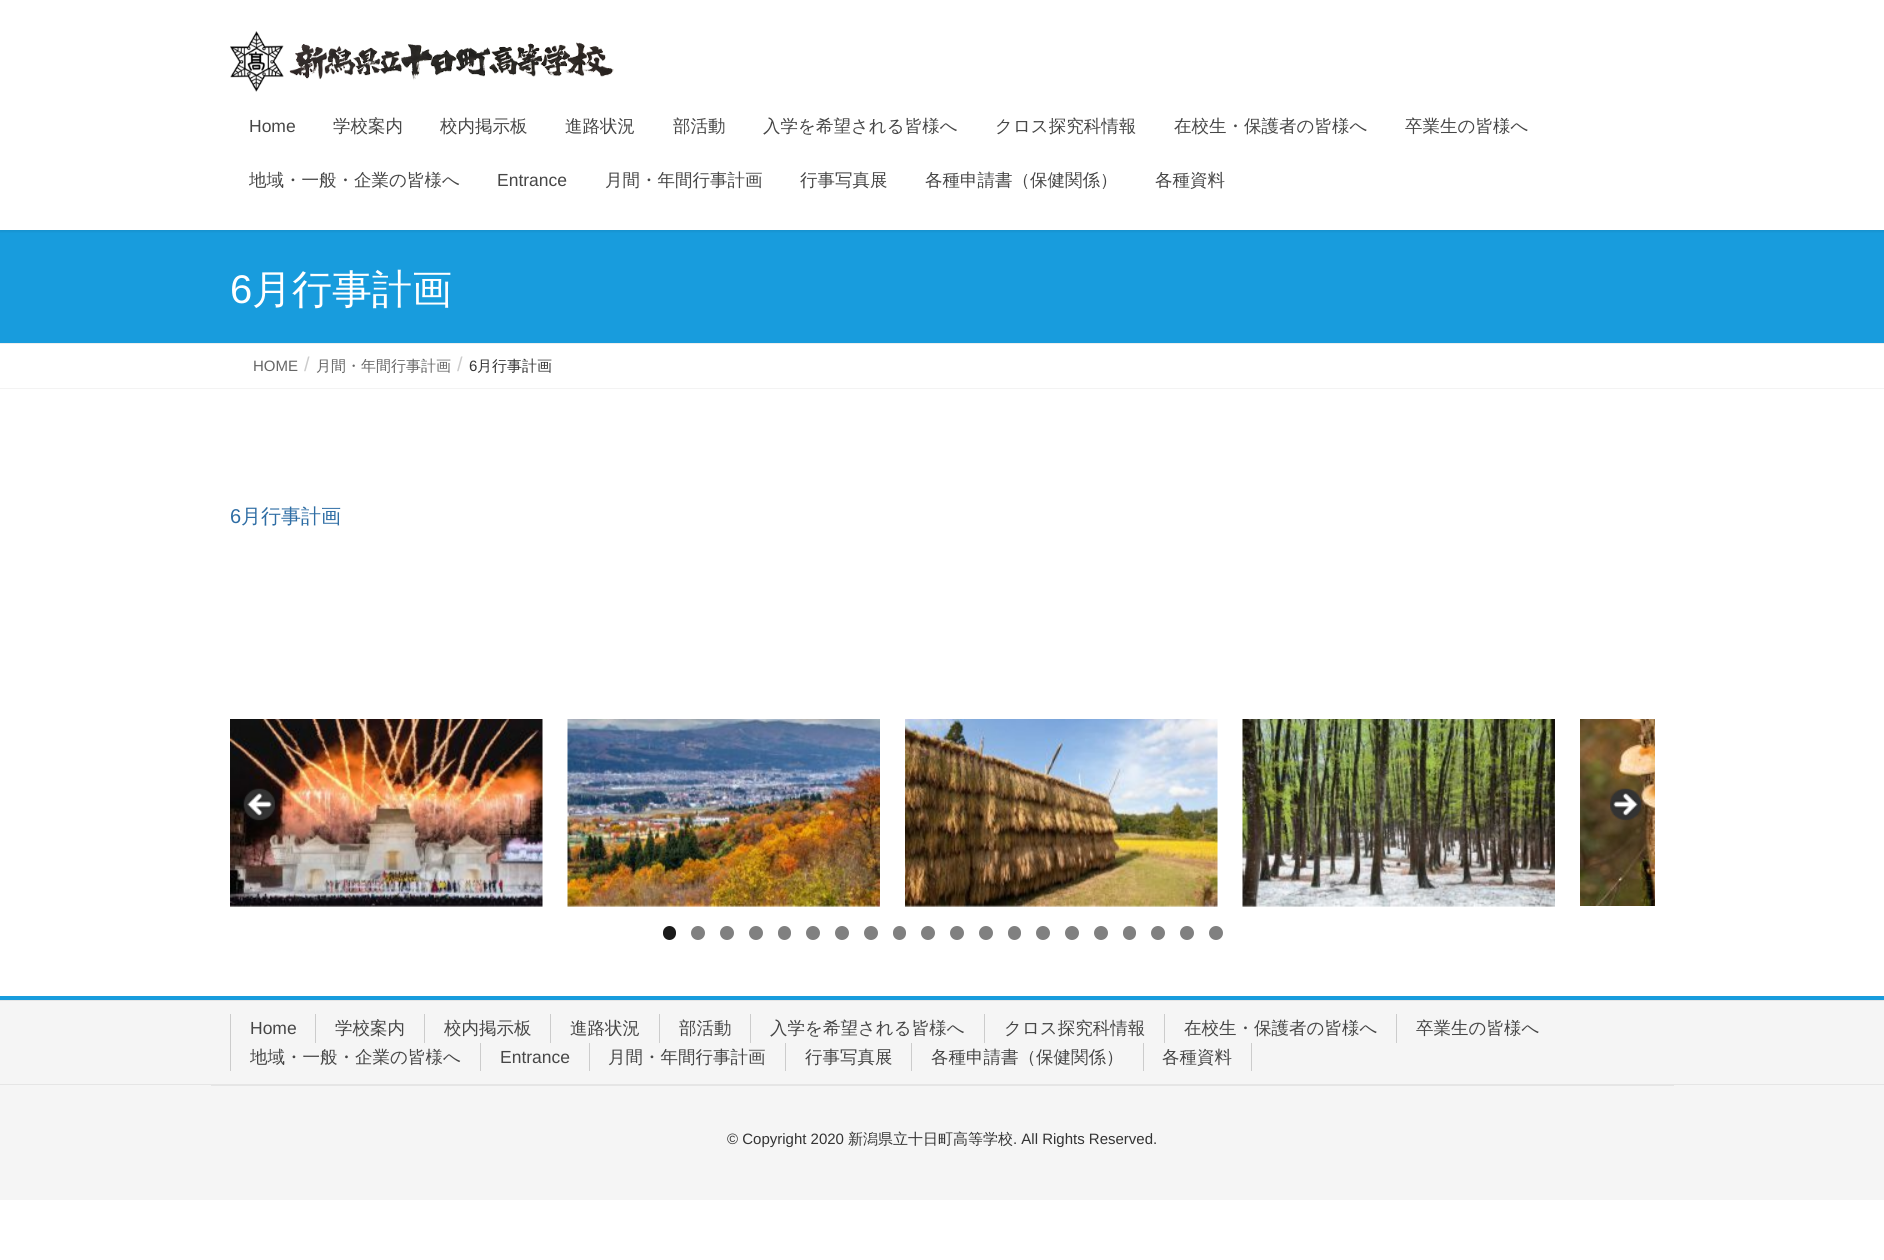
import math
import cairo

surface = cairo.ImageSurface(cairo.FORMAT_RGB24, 1884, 1260)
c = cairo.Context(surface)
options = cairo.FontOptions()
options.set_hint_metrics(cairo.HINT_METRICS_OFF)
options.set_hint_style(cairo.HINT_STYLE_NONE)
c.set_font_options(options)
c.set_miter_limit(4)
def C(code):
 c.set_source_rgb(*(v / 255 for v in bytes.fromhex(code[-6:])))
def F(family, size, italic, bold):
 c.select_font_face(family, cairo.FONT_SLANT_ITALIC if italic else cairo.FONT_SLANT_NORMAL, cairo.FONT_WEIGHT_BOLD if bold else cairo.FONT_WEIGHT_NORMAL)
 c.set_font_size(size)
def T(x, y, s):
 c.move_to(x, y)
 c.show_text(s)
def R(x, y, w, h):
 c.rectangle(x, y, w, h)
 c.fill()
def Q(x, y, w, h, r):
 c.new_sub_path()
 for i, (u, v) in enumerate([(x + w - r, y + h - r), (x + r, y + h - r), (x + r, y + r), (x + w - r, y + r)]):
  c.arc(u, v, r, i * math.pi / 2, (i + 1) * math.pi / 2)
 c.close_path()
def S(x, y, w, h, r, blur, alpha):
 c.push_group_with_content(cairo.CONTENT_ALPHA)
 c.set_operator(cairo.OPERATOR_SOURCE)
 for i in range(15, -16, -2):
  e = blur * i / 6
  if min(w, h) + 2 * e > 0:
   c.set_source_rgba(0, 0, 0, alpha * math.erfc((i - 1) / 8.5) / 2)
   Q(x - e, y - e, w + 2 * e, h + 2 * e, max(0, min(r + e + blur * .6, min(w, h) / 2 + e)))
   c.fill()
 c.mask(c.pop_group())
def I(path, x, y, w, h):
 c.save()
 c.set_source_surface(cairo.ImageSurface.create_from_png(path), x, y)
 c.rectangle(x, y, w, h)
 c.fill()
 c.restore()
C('ffffff')
c.paint()
C('189cdd')
R(0,230,1884,113)
c.save()
c.rectangle(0,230,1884,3)
c.clip()
C('000000')
S(0,1,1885,230,0,2,.1)
c.restore()
I('1.png',230,31,384,61)
F('Liberation Sans',17.5,0,0)
C('464646')
T(249,132,'Home')
F('WenQuanYi Zen Hei Medium',17.5,0,0)
T(333,132,'学校案内')
T(440,132,'校内掲示板')
T(565,132,'進路状況')
T(673,132,'部活動')
T(763,132,'入学を希望される皆様へ')
T(995,132,'クロス探究科情報')
T(1174,132,'在校生・保護者の皆様へ')
T(1405,132,'卒業生の皆様へ')
T(249,186,'地域・一般・企業の皆様へ')
F('Liberation Sans',17.5,0,0)
T(497,186,'Entrance')
F('WenQuanYi Zen Hei Medium',17.5,0,0)
T(605,186,'月間・年間行事計画')
T(800,186,'行事写真展')
T(925,186,'各種申請書（保健関係）')
T(1155,186,'各種資料')
C('eeeeee')
R(0,343,1884,1)
F('Liberation Sans',40,0,0)
C('ffffff')
T(230,303,'6')
F('WenQuanYi Zen Hei Medium',40,0,0)
T(252,303,'月行事計画')
C('f3f3f3')
R(0,388,1884,1)
F('Liberation Sans',15,0,0)
C('666666')
T(253,371,'HOME')
F('Liberation Sans',20,0,0)
C('cccccc')
T(304,371,'/')
F('WenQuanYi Zen Hei Medium',15,0,0)
C('666666')
T(316,371,'月間・年間行事計画')
F('Liberation Sans',20,0,0)
C('cccccc')
T(457,371,'/')
F('Liberation Sans',15,0,0)
C('333333')
T(469,371,'6')
F('WenQuanYi Zen Hei Medium',15,0,0)
T(477,371,'月行事計画')
F('Liberation Sans',20,0,0)
C('2e6da4')
T(230,523,'6')
F('WenQuanYi Zen Hei Medium',20,0,0)
T(241,523,'月行事計画')
I('2.png',230,719,313,188)
I('3.png',567,719,313,188)
I('4.png',905,719,313,188)
I('5.png',1242,719,313,188)
I('6.png',1580,719,75,187)
I('7.png',243,788,32,33)
I('8.png',1610,788,32,33)
C('1a1a1a')
Q(663,926,13,14,6.5)
c.fill()
C('808080')
c.arc(698,933,7,0,2 * math.pi)
c.fill()
c.arc(727,933,7,0,2 * math.pi)
c.fill()
c.arc(756,933,7,0,2 * math.pi)
c.fill()
Q(778,926,13,14,6.5)
c.fill()
c.arc(813,933,7,0,2 * math.pi)
c.fill()
c.arc(842,933,7,0,2 * math.pi)
c.fill()
c.arc(871,933,7,0,2 * math.pi)
c.fill()
Q(893,926,13,14,6.5)
c.fill()
c.arc(928,933,7,0,2 * math.pi)
c.fill()
c.arc(957,933,7,0,2 * math.pi)
c.fill()
c.arc(986,933,7,0,2 * math.pi)
c.fill()
Q(1008,926,13,14,6.5)
c.fill()
c.arc(1043,933,7,0,2 * math.pi)
c.fill()
c.arc(1072,933,7,0,2 * math.pi)
c.fill()
c.arc(1101,933,7,0,2 * math.pi)
c.fill()
Q(1123,926,13,14,6.5)
c.fill()
c.arc(1158,933,7,0,2 * math.pi)
c.fill()
c.arc(1187,933,7,0,2 * math.pi)
c.fill()
c.arc(1216,933,7,0,2 * math.pi)
c.fill()
C('f5f5f5')
R(0,1001,1884,199)
C('189cdd')
R(0,996,1884,4)
C('e5e5e5')
R(0,1000,1884,1)
R(0,1084,1884,1)
C('cccccc')
R(230,1014,1,57)
F('Liberation Sans',17.5,0,0)
C('464646')
T(250,1034,'Home')
C('cccccc')
R(315,1014,1,29)
F('WenQuanYi Zen Hei Medium',17.5,0,0)
C('464646')
T(335,1034,'学校案内')
C('cccccc')
R(424,1014,1,29)
C('464646')
T(444,1034,'校内掲示板')
C('cccccc')
R(550,1014,1,29)
C('464646')
T(570,1034,'進路状況')
C('cccccc')
R(659,1014,1,29)
C('464646')
T(679,1034,'部活動')
C('cccccc')
R(750,1014,1,29)
C('464646')
T(770,1034,'入学を希望される皆様へ')
C('cccccc')
R(984,1014,1,29)
C('464646')
T(1004,1034,'クロス探究科情報')
C('cccccc')
R(1164,1014,1,29)
C('464646')
T(1184,1034,'在校生・保護者の皆様へ')
C('cccccc')
R(1396,1014,1,29)
C('464646')
T(1416,1034,'卒業生の皆様へ')
T(250,1063,'地域・一般・企業の皆様へ')
C('cccccc')
R(480,1043,1,28)
F('Liberation Sans',17.5,0,0)
C('464646')
T(500,1063,'Entrance')
C('cccccc')
R(589,1043,1,28)
F('WenQuanYi Zen Hei Medium',17.5,0,0)
C('464646')
T(608,1063,'月間・年間行事計画')
C('cccccc')
R(785,1043,1,28)
C('464646')
T(805,1063,'行事写真展')
C('cccccc')
R(911,1043,1,28)
C('464646')
T(931,1063,'各種申請書（保健関係）')
C('cccccc')
R(1251,1043,1,28)
R(1143,1043,1,28)
C('464646')
T(1162,1063,'各種資料')
C('e5e5e5')
R(211,1085,1463,1)
F('Liberation Sans',15,0,0)
C('333333')
T(727,1144,'© Copyright 2020')
F('WenQuanYi Zen Hei Medium',15,0,0)
T(848,1144,'新潟県立十日町高等学校')
F('Liberation Sans',15,0,0)
T(1013,1144,'. All Rights Reserved.')
surface.write_to_png('o.png')
